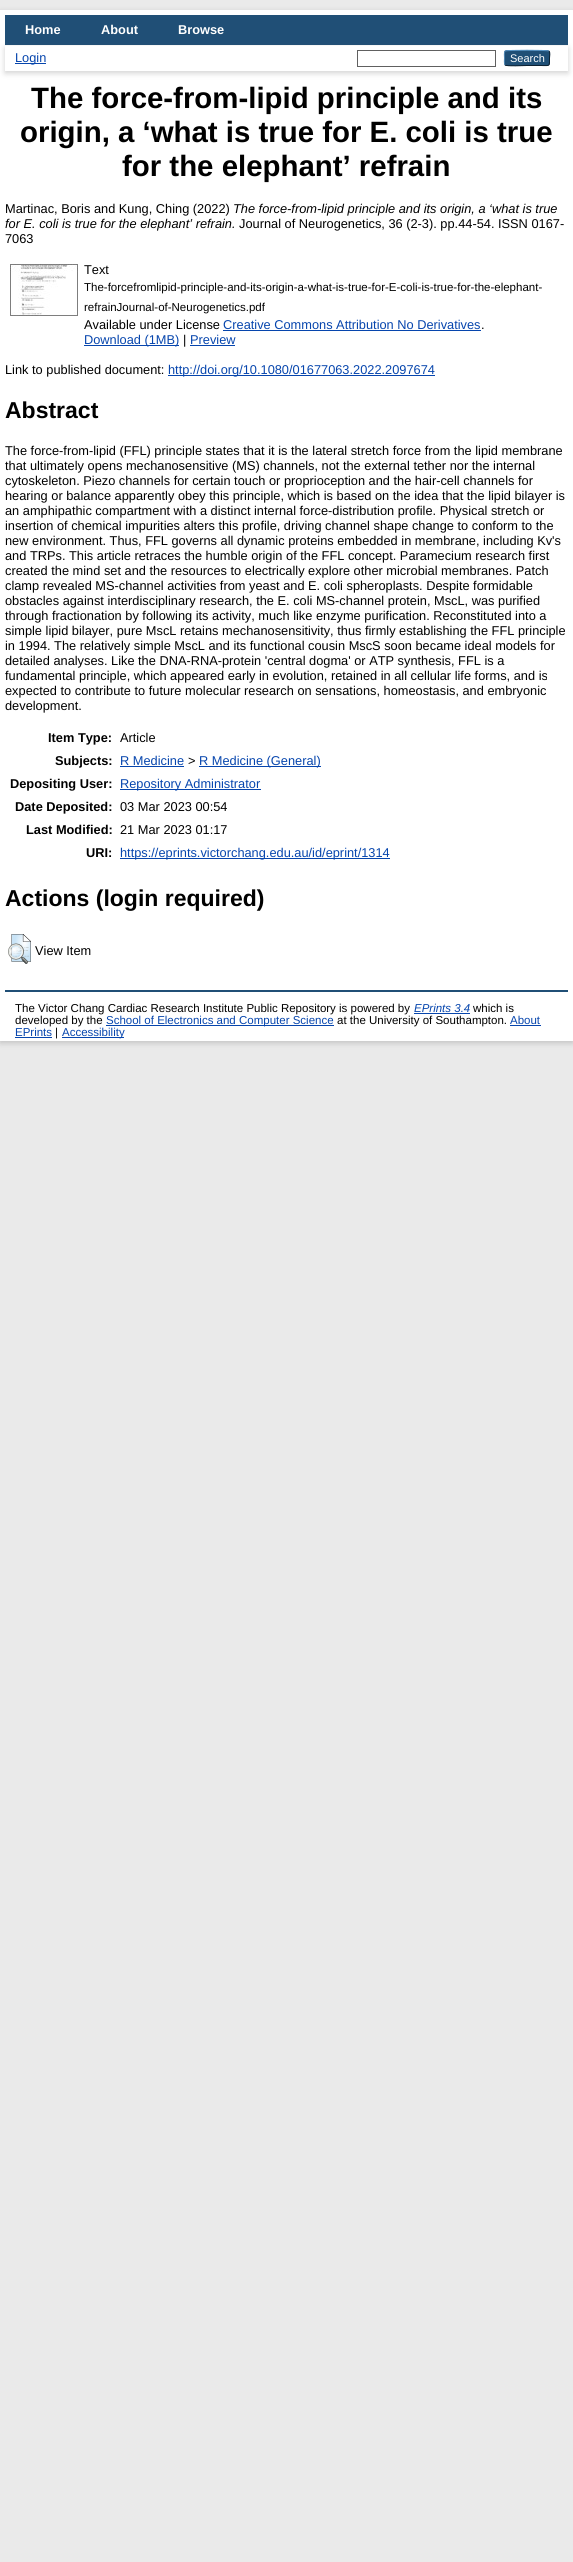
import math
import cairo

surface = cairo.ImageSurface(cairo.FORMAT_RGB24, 573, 2562)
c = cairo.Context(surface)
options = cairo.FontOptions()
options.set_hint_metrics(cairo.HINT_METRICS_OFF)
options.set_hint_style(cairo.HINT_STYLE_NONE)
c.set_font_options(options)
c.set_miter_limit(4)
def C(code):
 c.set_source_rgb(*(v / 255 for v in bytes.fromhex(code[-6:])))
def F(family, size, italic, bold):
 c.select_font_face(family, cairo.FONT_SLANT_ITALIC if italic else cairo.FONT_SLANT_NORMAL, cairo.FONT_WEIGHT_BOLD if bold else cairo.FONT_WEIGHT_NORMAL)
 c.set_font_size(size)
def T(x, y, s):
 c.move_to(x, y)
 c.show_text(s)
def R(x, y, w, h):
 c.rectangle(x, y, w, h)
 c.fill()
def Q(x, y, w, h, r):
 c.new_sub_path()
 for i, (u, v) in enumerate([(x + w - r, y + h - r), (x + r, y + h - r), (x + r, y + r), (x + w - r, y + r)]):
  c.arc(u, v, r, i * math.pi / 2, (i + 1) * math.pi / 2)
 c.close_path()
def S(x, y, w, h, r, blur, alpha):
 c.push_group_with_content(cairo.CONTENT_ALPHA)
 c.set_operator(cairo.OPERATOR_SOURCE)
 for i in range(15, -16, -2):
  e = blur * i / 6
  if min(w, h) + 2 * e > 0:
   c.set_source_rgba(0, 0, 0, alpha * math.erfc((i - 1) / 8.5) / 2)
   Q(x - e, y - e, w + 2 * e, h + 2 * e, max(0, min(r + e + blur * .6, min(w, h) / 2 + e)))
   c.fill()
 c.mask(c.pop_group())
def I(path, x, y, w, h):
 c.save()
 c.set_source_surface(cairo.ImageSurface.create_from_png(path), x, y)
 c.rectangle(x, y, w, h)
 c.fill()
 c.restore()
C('eaeaea')
c.paint()
C('646464')
S(0,12,573,1031,0,3,.3)
C('ffffff')
R(0,10,573,1031)
C('204f76')
R(5,15,563,30)
F('Liberation Sans',12.8,0,1)
C('ffffff')
T(25,34,'Home')
T(101,34,'About')
T(178,34,'Browse')
C('646464')
S(5,48,563,25,0,3,.3)
C('ffffff')
R(5,46,563,25)
C('0645ad')
R(15,63,31,1)
F('Liberation Sans',12.8,0,0)
T(15,62,'Login')
c.rectangle(357.5,50.5,138,16)
C('606060')
c.set_line_width(1)
c.stroke()
C('1f4f76')
Q(504,50,46,16,3)
c.fill()
c.new_path()
c.move_to(505,51)
c.curve_to(506.5,50,547.5,50,549,51)
C('5b97c7')
c.stroke()
c.new_path()
c.move_to(549,51)
c.curve_to(550.5,53,549.5,56,549.5,58)
c.curve_to(549.5,67,550,65.5,540.5,65.5)
c.line_to(527,65.5)
c.curve_to(523.5,65.5,507,66.5,505,65)
C('0d2131')
c.stroke()
c.new_path()
c.move_to(505,65)
c.curve_to(504,63.5,504.5,59.5,504.5,58)
c.curve_to(504.5,56.5,504,52.5,505,51)
C('5287b3')
c.stroke()
F('Liberation Sans',11,0,0)
C('ffffff')
T(510,62,'Search')
F('Liberation Sans',29.4,0,1)
C('000000')
T(31,108,'The force-from-lipid principle and its')
T(20,142,'origin, a ‘what is true for E. coli is true')
T(122,176,'for the elephant’ refrain')
F('Liberation Sans',12.8,0,0)
T(5,213,'Martinac, Boris and Kung, Ching (2022)')
F('Liberation Sans',12.8,1,0)
T(233,213,'The force-from-lipid principle and its origin, a ‘what is true')
T(5,228,'for E. coli is true for the elephant’ refrain.')
F('Liberation Sans',12.8,0,0)
T(239,228,'Journal of Neurogenetics, 36 (2-3). pp.44-54. ISSN 0167-')
T(5,243,'7063')
I('1.png',10,264,68,52)
T(84,274,'Text')
F('Liberation Sans',11.5,0,0)
T(84,291,'The-forcefromlipid-principle-and-its-origin-a-what-is-true-for-E-coli-is-true-for-the-elephant-')
T(84,311,'refrainJournal-of-Neurogenetics.pdf')
F('Liberation Sans',12.8,0,0)
T(84,329,'Available under License')
C('0645ad')
T(223,329,'Creative Commons Attribution No Derivatives')
C('000000')
T(481,329,'.')
C('0645ad')
R(223,330,258,1)
R(84,345,95,1)
T(84,344,'Download (1MB)')
C('000000')
T(183,344,'|')
C('0645ad')
T(190,344,'Preview')
R(190,345,45,1)
C('000000')
T(5,374,'Link to published document:')
C('0645ad')
R(168,375,267,1)
T(168,374,'http://doi.org/10.1080/01677063.2022.2097674')
F('Liberation Sans',23,0,1)
C('000000')
T(5,418,'Abstract')
F('Liberation Sans',12.8,0,0)
T(5,455,'The force-from-lipid (FFL) principle states that it is the lateral stretch force from the lipid membrane')
T(5,470,'that ultimately opens mechanosensitive (MS) channels, not the external tether nor the internal')
T(5,485,'cytoskeleton. Piezo channels for certain touch or proprioception and the hair-cell channels for')
T(5,500,'hearing or balance apparently obey this principle, which is based on the idea that the lipid bilayer is')
T(5,515,'an amphipathic compartment with a distinct internal force-distribution profile. Physical stretch or')
T(5,530,'insertion of chemical impurities alters this profile, driving channel shape change to conform to the')
T(5,545,'new environment. Thus, FFL governs all dynamic proteins embedded in membrane, including Kv\'s')
T(5,560,'and TRPs. This article retraces the humble origin of the FFL concept. Paramecium research first')
T(5,575,'created the mind set and the resources to electrically explore other microbial membranes. Patch')
T(5,590,'clamp revealed MS-channel activities from yeast and E. coli spheroplasts. Despite formidable')
T(5,605,'obstacles against interdisciplinary research, the E. coli MS-channel protein, MscL, was purified')
T(5,620,'through fractionation by following its activity, much like enzyme purification. Reconstituted into a')
T(5,635,'simple lipid bilayer, pure MscL retains mechanosensitivity, thus firmly establishing the FFL principle')
T(5,650,'in 1994. The relatively simple MscL and its functional cousin MscS soon became ideal models for')
T(5,665,'detailed analyses. Like the DNA-RNA-protein \'central dogma\' or ATP synthesis, FFL is a')
T(5,680,'fundamental principle, which appeared early in evolution, retained in all cellular life forms, and is')
T(5,695,'expected to contribute to future molecular research on sensations, homeostasis, and embryonic')
T(5,710,'development.')
F('Liberation Sans',12.8,0,1)
T(48,742,'Item Type:')
F('Liberation Sans',12.8,0,0)
T(120,742,'Article')
F('Liberation Sans',12.8,0,1)
T(55,765,'Subjects:')
F('Liberation Sans',12.8,0,0)
C('0645ad')
T(120,765,'R Medicine')
R(120,766,64,1)
C('000000')
T(188,765,'>')
C('0645ad')
R(199,766,122,1)
T(199,765,'R Medicine (General)')
F('Liberation Sans',12.8,0,1)
C('000000')
T(10,788,'Depositing User:')
C('0645ad')
R(120,789,141,1)
F('Liberation Sans',12.8,0,0)
T(120,788,'Repository Administrator')
F('Liberation Sans',12.8,0,1)
C('000000')
T(15,811,'Date Deposited:')
F('Liberation Sans',12.8,0,0)
T(120,811,'03 Mar 2023 00:54')
F('Liberation Sans',12.8,0,1)
T(26,834,'Last Modified:')
F('Liberation Sans',12.8,0,0)
T(120,834,'21 Mar 2023 01:17')
F('Liberation Sans',12.8,0,1)
T(86,857,'URI:')
C('0645ad')
R(120,858,270,1)
F('Liberation Sans',12.8,0,0)
T(120,857,'https://eprints.victorchang.edu.au/id/eprint/1314')
F('Liberation Sans',23,0,1)
C('000000')
T(5,906,'Actions (login required)')
I('2.png',8,934,23,30)
F('Liberation Sans',12.8,0,0)
T(35,955,'View Item')
C('204f76')
R(5,990,563,2)
F('Liberation Sans',11.5,0,0)
C('000000')
T(15,1012,'The Victor Chang Cardiac Research Institute Public Repository is powered by')
F('Liberation Sans',11.5,1,0)
C('0645ad')
T(414,1012,'EPrints 3.4')
R(414,1013,56,1)
F('Liberation Sans',11.5,0,0)
C('000000')
T(473,1012,'which is')
T(15,1024,'developed by the')
C('0645ad')
R(106,1025,228,1)
T(106,1024,'School of Electronics and Computer Science')
C('000000')
T(337,1024,'at the University of Southampton.')
C('0645ad')
T(510,1024,'About')
R(510,1025,31,1)
T(15,1036,'EPrints')
R(15,1037,37,1)
C('000000')
T(55,1036,'|')
C('0645ad')
R(62,1037,62,1)
T(62,1036,'Accessibility')
surface.write_to_png('o.png')
